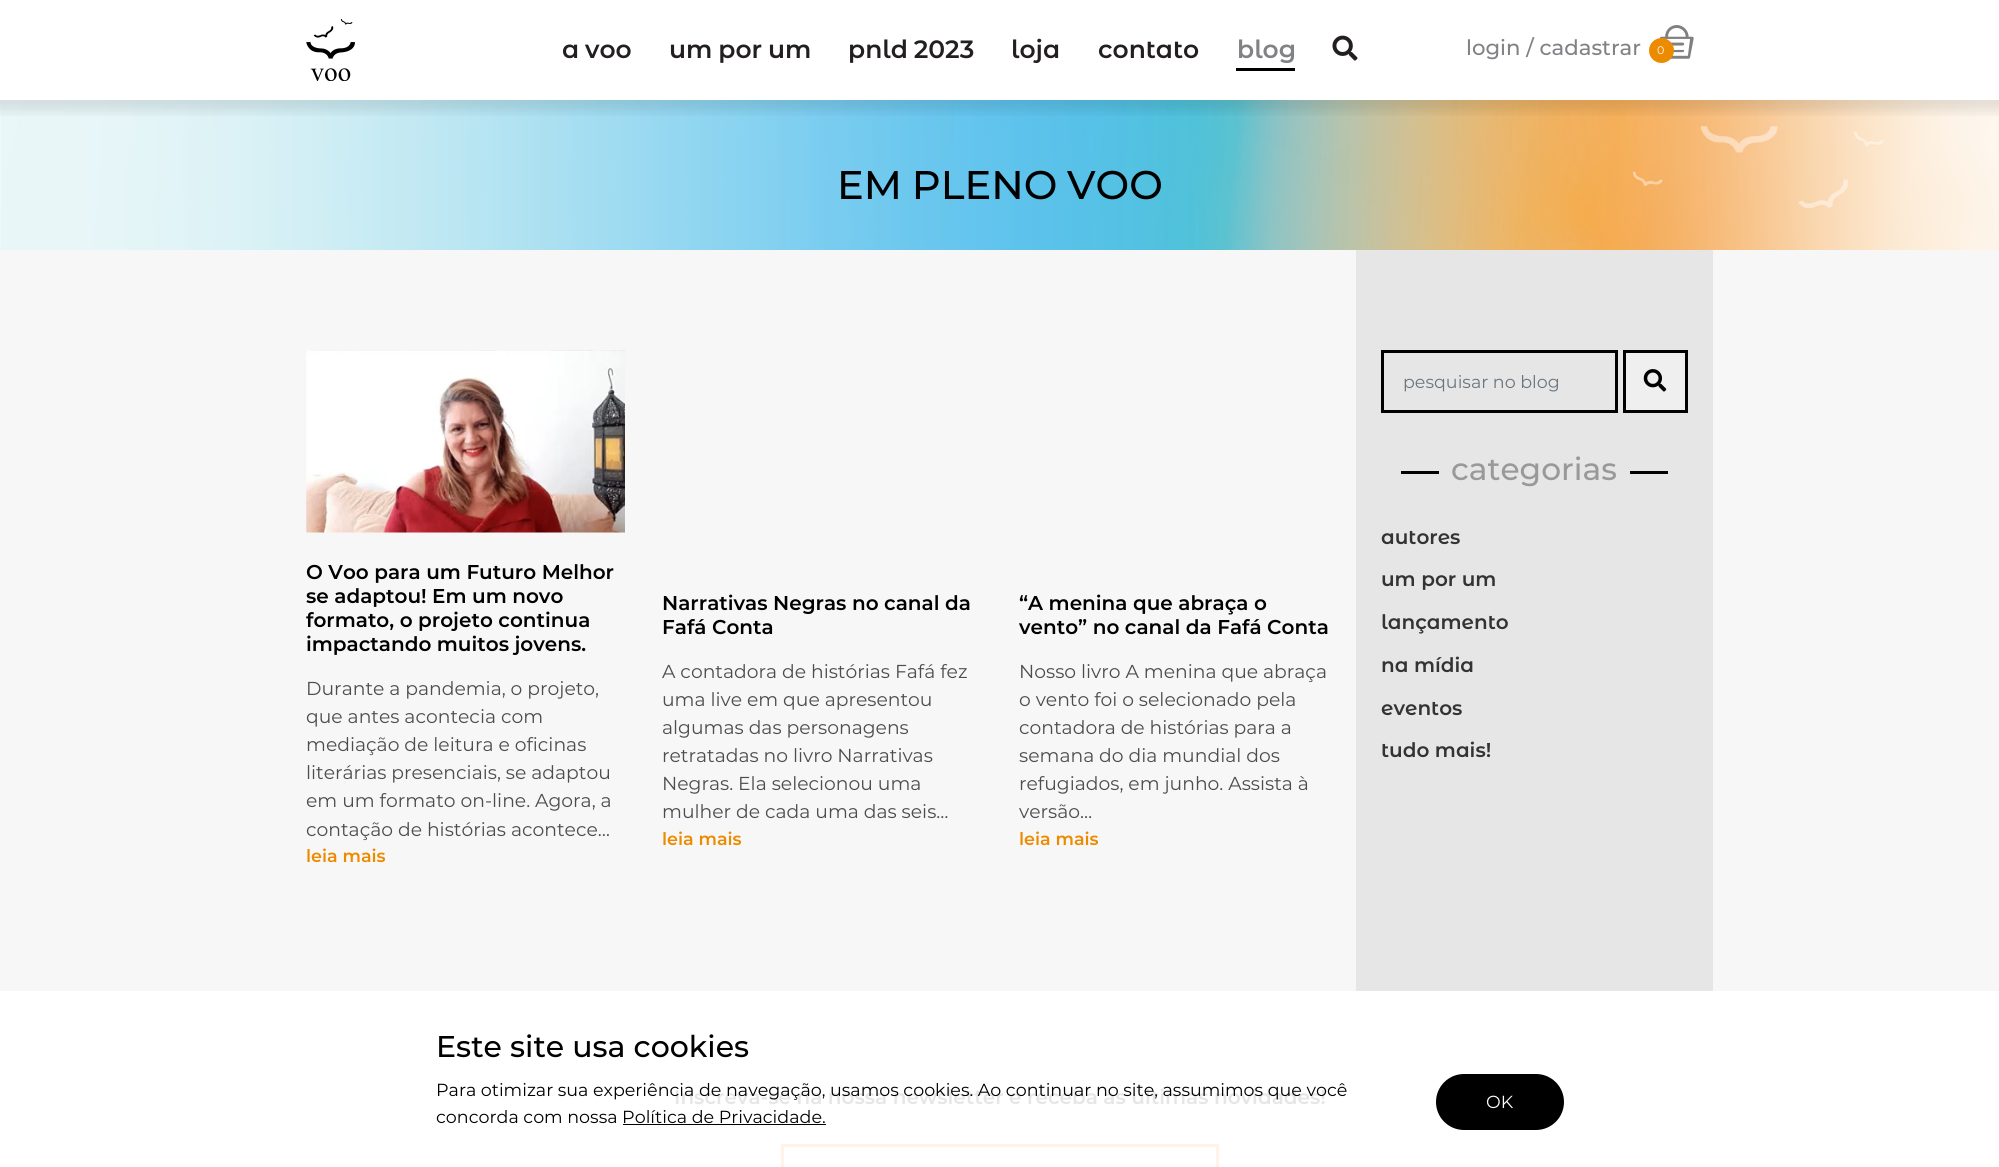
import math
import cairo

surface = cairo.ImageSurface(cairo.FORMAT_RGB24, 1999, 1167)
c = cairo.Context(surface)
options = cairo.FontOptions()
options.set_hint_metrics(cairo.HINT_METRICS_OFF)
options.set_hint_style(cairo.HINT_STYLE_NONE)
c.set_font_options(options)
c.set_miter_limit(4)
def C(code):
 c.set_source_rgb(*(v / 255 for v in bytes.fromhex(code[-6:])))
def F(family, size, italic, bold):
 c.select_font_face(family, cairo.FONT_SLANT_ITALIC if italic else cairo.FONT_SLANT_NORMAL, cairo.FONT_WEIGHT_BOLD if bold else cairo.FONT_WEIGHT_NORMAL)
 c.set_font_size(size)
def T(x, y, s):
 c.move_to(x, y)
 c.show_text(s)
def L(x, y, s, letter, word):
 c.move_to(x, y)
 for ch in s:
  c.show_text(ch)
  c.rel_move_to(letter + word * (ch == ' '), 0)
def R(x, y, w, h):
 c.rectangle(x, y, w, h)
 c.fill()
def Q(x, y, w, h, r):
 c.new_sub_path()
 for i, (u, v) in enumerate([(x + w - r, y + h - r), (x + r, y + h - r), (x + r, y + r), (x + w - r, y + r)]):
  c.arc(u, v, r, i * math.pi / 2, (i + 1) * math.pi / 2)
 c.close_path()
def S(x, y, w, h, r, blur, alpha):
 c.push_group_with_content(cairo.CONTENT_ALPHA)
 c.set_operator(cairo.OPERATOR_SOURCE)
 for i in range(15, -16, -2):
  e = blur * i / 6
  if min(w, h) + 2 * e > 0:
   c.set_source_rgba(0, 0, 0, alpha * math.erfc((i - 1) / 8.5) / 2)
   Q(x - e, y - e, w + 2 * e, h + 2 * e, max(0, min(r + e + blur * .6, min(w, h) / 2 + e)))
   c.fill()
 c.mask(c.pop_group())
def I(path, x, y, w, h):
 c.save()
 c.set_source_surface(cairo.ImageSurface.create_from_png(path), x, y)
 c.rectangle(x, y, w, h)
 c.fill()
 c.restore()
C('ffffff')
c.paint()
I('4.png',0,100,1999,150)
c.save()
c.rectangle(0,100,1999,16)
c.clip()
C('000000')
S(-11,-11,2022,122,0,6,.1)
c.restore()
I('1.png',306,19,49,62)
F('Montserrat Alternates SemiBold',25,0,0)
C('231f20')
L(562,58,'a voo',0,-1)
L(669,58,'um por um',0,-1)
L(848,58,'pnld 2023',0,-1)
T(1011,58,'loja')
T(1098,58,'contato')
C('000000')
R(1236,68,59,3)
C('808285')
T(1237,58,'blog')
I('2.png',1332,35,26,26)
F('Montserrat Medium',21.25,0,0)
T(1466,55,'login / cadastrar')
I('3.png',1660,25,34,34)
C('ed8b00')
c.arc(1661.5,50.5,12.5,0,2 * math.pi)
c.fill()
F('Montserrat',11,0,0)
C('ffffff')
L(1657,54,'0',1,0)
F('Montserrat Medium',40,0,0)
C('000000')
L(837,199,'EM PLENO VOO',0,-1)
C('f7f7f7')
R(0,250,1999,741)
I('5.png',306,350,319,183)
F('Montserrat SemiBold',20,0,0)
C('000000')
T(306,579,'O Voo para um Futuro Melhor')
T(306,603,'se adaptou! Em um novo')
T(306,627,'formato, o projeto continua')
T(306,651,'impactando muitos jovens.')
F('Montserrat',18.75,0,0)
C('4d4d4d')
T(306,695,'Durante a pandemia, o projeto,')
T(306,723,'que antes acontecia com')
T(306,751,'mediação de leitura e oficinas')
T(306,779,'literárias presenciais, se adaptou')
T(306,807,'em um formato on-line. Agora, a')
T(306,836,'contação de histórias acontece…')
F('Montserrat SemiBold',17.5,0,0)
C('ed8b00')
T(306,862,'leia mais')
F('Montserrat SemiBold',20,0,0)
C('000000')
T(662,610,'Narrativas Negras no canal da')
T(662,634,'Fafá Conta')
F('Montserrat',18.75,0,0)
C('4d4d4d')
T(662,678,'A contadora de histórias Fafá fez')
T(662,706,'uma live em que apresentou')
T(662,734,'algumas das personagens')
T(662,762,'retratadas no livro Narrativas')
T(662,790,'Negras. Ela selecionou uma')
T(662,818,'mulher de cada uma das seis…')
F('Montserrat SemiBold',17.5,0,0)
C('ed8b00')
T(662,845,'leia mais')
F('Montserrat SemiBold',20,0,0)
C('000000')
T(1019,610,'“A menina que abraça o')
T(1019,634,'vento” no canal da Fafá Conta')
F('Montserrat',18.75,0,0)
C('4d4d4d')
T(1019,678,'Nosso livro A menina que abraça')
T(1019,706,'o vento foi o selecionado pela')
T(1019,734,'contadora de histórias para a')
T(1019,762,'semana do dia mundial dos')
T(1019,790,'refugiados, em junho. Assista à')
T(1019,818,'versão…')
F('Montserrat SemiBold',17.5,0,0)
C('ed8b00')
T(1019,845,'leia mais')
C('e6e6e6')
R(1356,250,357,741)
c.rectangle(1382.5,351.5,234,60)
C('000000')
c.set_line_width(3)
c.stroke()
F('Montserrat',17.5,0,0)
C('6c757d')
T(1403,388,'pesquisar no blog')
C('efefef')
c.rectangle(1624.5,351.5,62,60)
c.fill_preserve()
C('000000')
c.stroke()
I('6.png',1643,369,24,23)
R(1401,471,38,3)
F('Montserrat Medium',31.25,0,0)
C('999999')
T(1451,480,'categorias')
C('000000')
R(1630,471,38,3)
F('Montserrat Alternates SemiBold',20,0,0)
C('333333')
T(1381,544,'autores')
T(1381,586,'um por um')
T(1381,629,'lançamento')
T(1381,672,'na mídia')
T(1381,715,'eventos')
T(1381,757,'tudo mais!')
F('Montserrat Medium',30,0,0)
C('000000')
T(436,1057,'Este site usa cookies')
F('Montserrat SemiBold',20,0,0)
C('e6e6e6')
T(674,1104,'Inscreva-se na nossa newsletter e receba as últimas novidades!')
F('Montserrat',17.5,0,0)
C('000000')
T(436,1096,'Para otimizar sua experiência de navegação, usamos cookies. Ao continuar no site, assumimos que você')
T(436,1123,'concorda com nossa Política de Privacidade.')
R(623,1124,203,1)
Q(1436,1074,128,56,28)
c.fill()
C('ffffff')
T(1486,1108,'OK')
c.rectangle(782.5,1145.5,435,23)
C('fdf3e6')
c.stroke()
surface.write_to_png('o.png')
